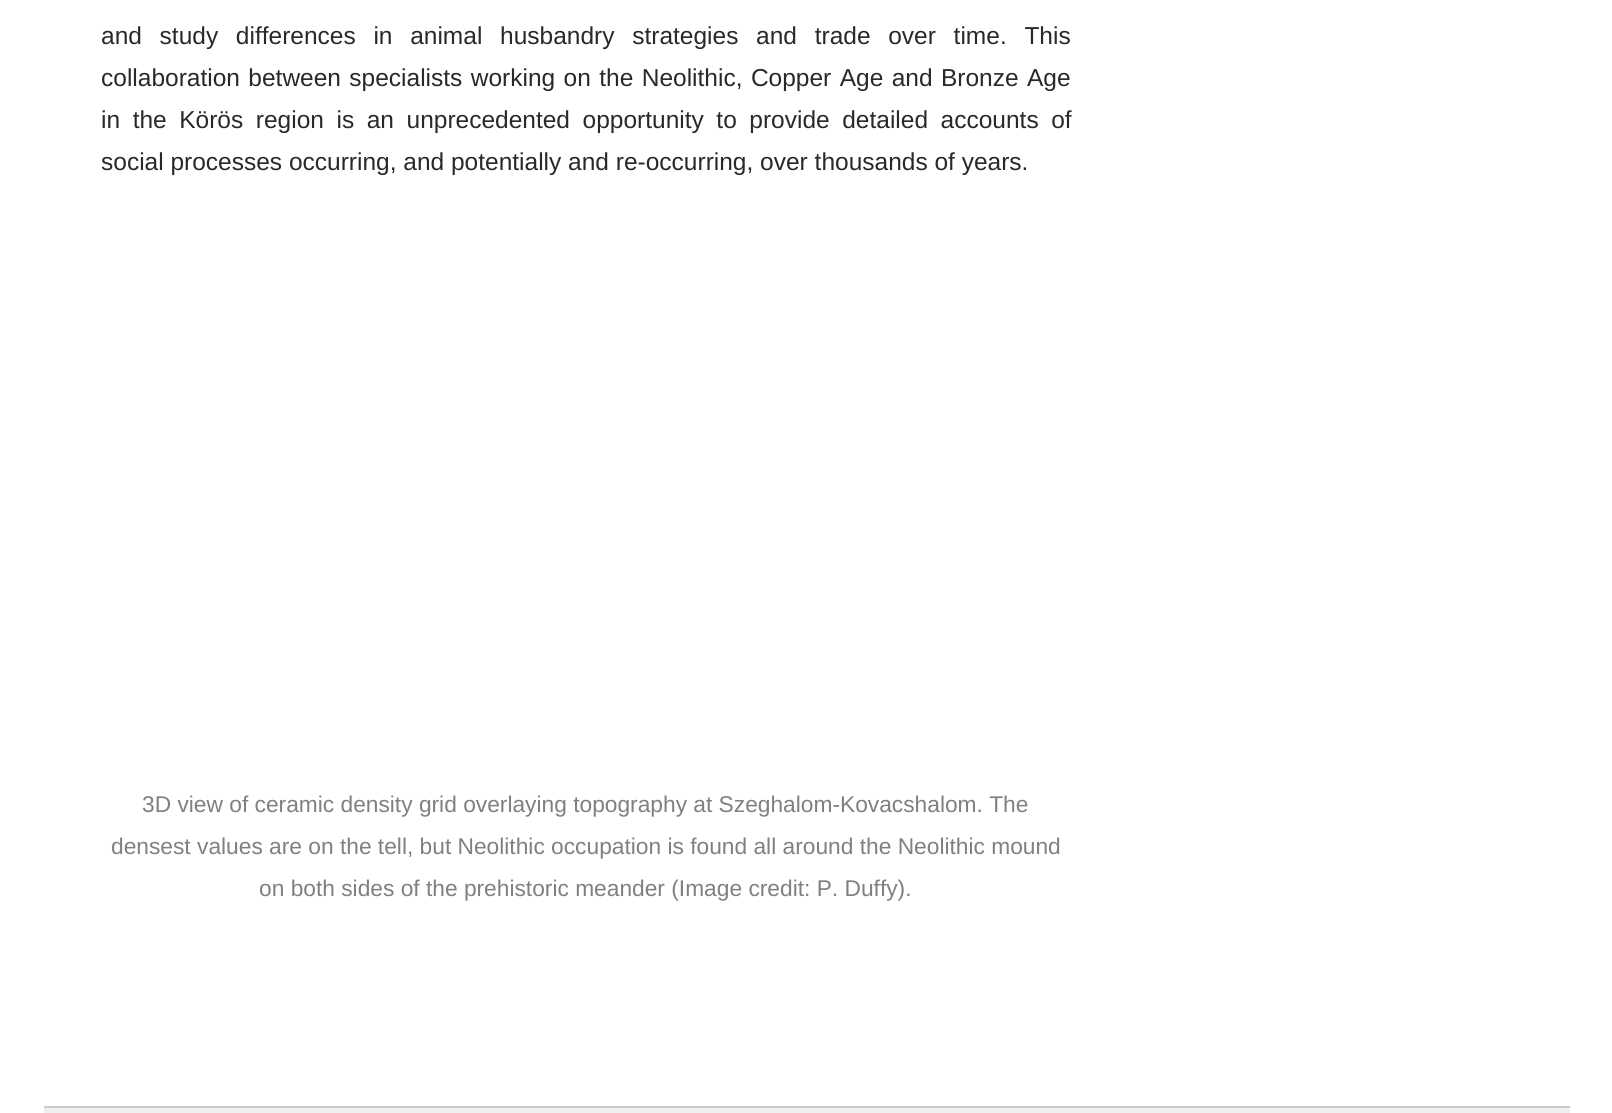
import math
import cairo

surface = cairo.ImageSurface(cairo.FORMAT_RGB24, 1612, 1113)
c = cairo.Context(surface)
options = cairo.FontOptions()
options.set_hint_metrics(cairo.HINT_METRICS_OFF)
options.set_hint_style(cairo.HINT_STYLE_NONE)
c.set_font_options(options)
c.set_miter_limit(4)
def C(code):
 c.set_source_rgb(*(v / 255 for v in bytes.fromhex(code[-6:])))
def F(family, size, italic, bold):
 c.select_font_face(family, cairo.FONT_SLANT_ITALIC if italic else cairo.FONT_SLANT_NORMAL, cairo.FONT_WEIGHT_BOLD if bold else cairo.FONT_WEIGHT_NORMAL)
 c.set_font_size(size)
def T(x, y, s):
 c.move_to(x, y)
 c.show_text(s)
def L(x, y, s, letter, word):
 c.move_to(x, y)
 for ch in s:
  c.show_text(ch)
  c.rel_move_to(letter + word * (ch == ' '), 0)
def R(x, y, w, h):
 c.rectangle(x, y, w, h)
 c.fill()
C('ffffff')
c.paint()
F('Liberation Sans',24.5,0,0)
C('292929')
L(101,44,'and study differences in animal husbandry strategies and trade over time. This',0,10.9)
L(101,86,'collaboration between specialists working on the Neolithic, Copper Age and Bronze Age',0,1.6)
L(101,128,'in the Körös region is an unprecedented opportunity to provide detailed accounts of',0,5.75)
T(101,170,'social processes occurring, and potentially and re-occurring, over thousands of years.')
F('Liberation Sans',22.75,0,0)
C('808080')
T(142,812,'3D view of ceramic density grid overlaying topography at Szeghalom-Kovacshalom. The')
T(111,854,'densest values are on the tell, but Neolithic occupation is found all around the Neolithic mound')
T(259,896,'on both sides of the prehistoric meander (Image credit: P. Duffy).')
C('f0f0f0')
R(44,1108,1526,5)
C('cccccc')
R(44,1106,1526,2)
surface.write_to_png('o.png')
